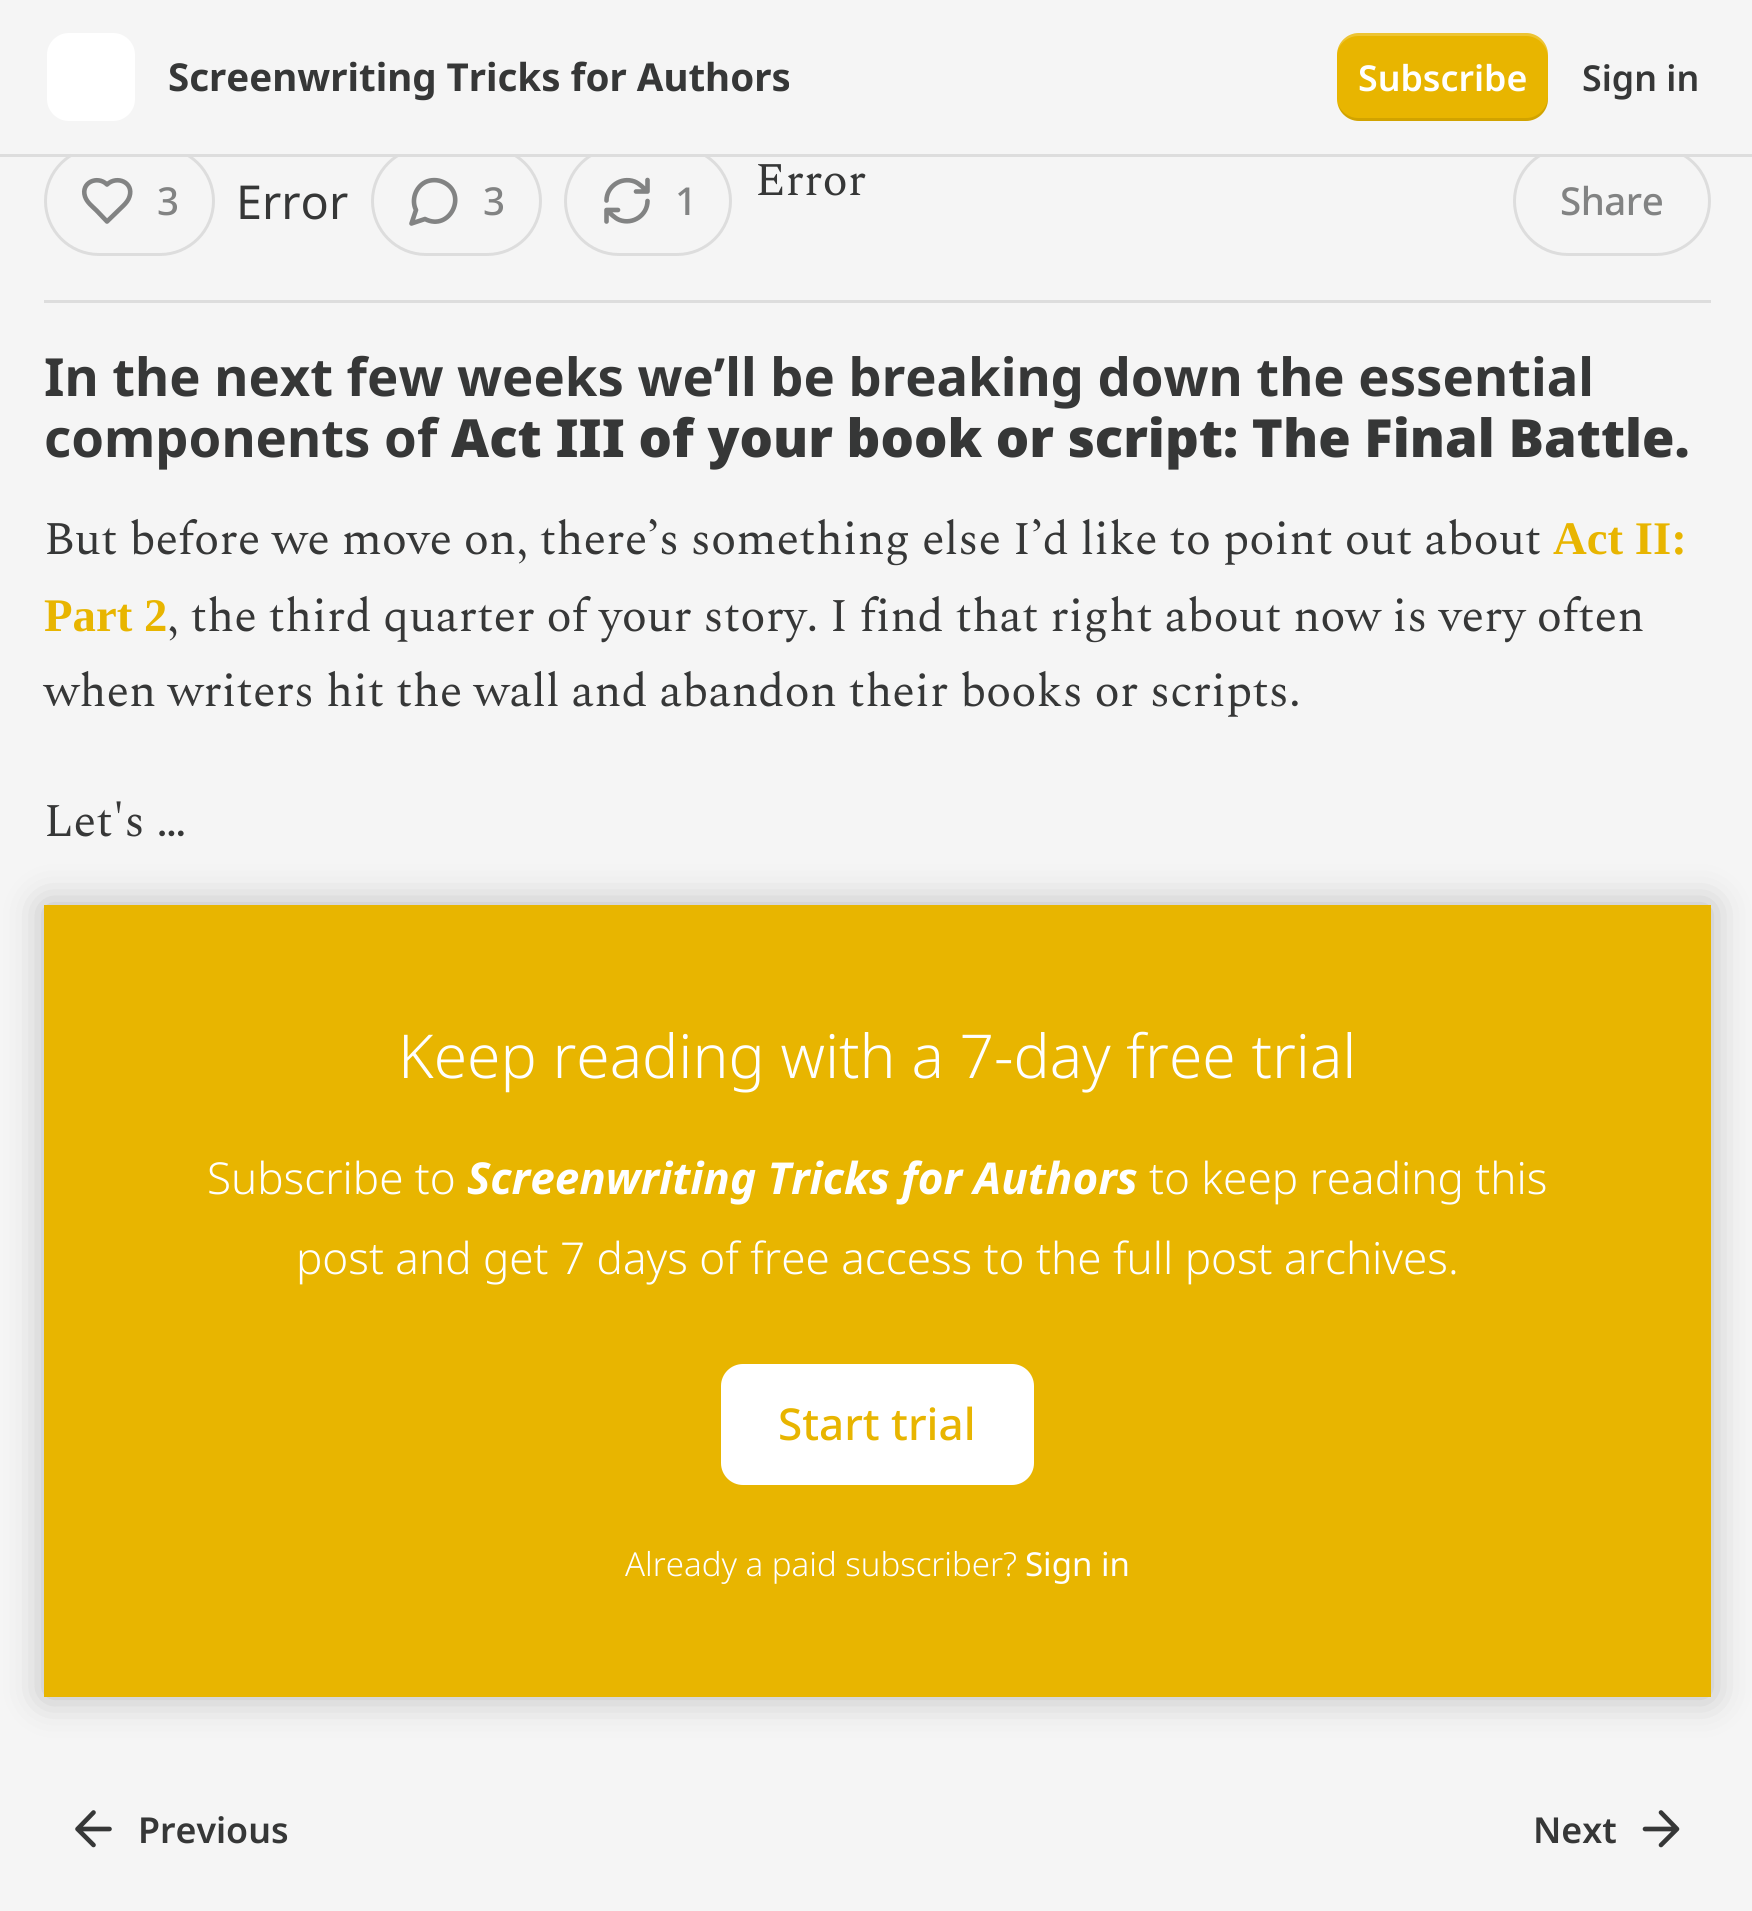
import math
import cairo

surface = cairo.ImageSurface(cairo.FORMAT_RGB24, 1752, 1911)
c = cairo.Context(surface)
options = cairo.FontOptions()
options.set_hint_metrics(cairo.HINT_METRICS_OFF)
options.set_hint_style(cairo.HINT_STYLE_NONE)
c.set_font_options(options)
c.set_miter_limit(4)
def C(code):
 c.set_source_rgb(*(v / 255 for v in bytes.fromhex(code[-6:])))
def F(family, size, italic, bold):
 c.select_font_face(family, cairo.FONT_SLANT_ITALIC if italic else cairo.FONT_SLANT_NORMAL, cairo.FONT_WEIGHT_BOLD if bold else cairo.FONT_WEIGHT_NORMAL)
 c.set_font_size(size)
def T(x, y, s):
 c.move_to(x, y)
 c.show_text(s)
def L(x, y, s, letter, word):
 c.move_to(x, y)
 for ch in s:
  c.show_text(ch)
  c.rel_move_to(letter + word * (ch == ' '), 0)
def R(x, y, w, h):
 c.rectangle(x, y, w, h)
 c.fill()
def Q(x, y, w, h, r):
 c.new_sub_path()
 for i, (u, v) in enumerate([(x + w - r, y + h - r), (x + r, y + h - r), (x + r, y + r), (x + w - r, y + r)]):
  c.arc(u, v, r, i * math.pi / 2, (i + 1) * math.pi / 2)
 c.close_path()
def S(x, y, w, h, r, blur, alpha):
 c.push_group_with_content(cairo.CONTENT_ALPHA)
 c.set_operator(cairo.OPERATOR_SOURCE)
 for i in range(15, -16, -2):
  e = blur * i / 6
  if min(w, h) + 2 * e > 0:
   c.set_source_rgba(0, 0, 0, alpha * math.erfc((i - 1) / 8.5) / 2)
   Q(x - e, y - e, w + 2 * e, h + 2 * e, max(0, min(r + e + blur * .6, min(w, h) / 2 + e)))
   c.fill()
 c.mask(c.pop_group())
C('f5f5f5')
c.paint()
Q(45.5,147.5,168,107,53.5)
C('dddddd')
c.set_line_width(3)
c.stroke()
Q(372.5,147.5,168,107,53.5)
c.stroke()
Q(565.5,147.5,165,107,53.5)
c.stroke()
Q(1514.5,147.5,195,107,53.5)
c.stroke()
C('f5f5f5')
R(71,146,1613,8)
C('dddddd')
R(0,154,1752,3)
C('ffffff')
Q(47,33,88,88,22)
c.fill()
F('Noto Sans',38.5,0,1)
C('363737')
T(168,91,'Screenwriting Tricks for Authors')
C('e8b500')
Q(1337,33,211,88,22)
c.fill()
c.set_source_rgba(0,0,0,0.1)
c.new_path()
c.move_to(1338,104)
c.curve_to(1340,114,1349,121,1359,121)
c.line_to(1526,121)
c.curve_to(1538,121,1548,111,1548,99)
c.line_to(1548,96)
c.curve_to(1548,108,1538,118,1526,118)
c.line_to(1358,118)
c.curve_to(1349,118,1341,112,1338,104)
c.close_path()
c.fill()
c.set_source_rgba(1,1,1,0.2)
c.new_path()
c.move_to(1358,36)
c.line_to(1526,36)
c.curve_to(1538,36,1548,46,1548,58)
c.line_to(1548,55)
c.curve_to(1548,43,1538,33,1526,33)
c.line_to(1359,33)
c.curve_to(1349,33,1340,40,1338,50)
c.curve_to(1341,42,1349,36,1358,36)
c.close_path()
c.fill()
F('Noto Sans SemiBold',35.75,0,0)
C('ffffff')
T(1358,91,'Subscribe')
C('363737')
T(1582,91,'Sign in')
C('dddddd')
R(44,300,1667,3)
F('Spectral',46.75,0,0)
C('363737')
T(755,195,'Error')
c.new_path()
c.move_to(123.5,205.5)
c.curve_to(126,203,128.5,200,129.5,196.5)
c.curve_to(134,182.5,117,175,107,184.5)
c.curve_to(97.5,175,80.5,182.5,85,196.5)
c.curve_to(87,202.5,92.5,206.5,96.5,210.5)
c.line_to(107,221.5)
c.close_path()
C('828383')
c.set_line_width(4.6)
c.set_line_cap(cairo.LINE_CAP_ROUND)
c.set_line_join(cairo.LINE_JOIN_ROUND)
c.stroke()
F('Noto Sans Medium',38.5,0,0)
L(157,215,'3',-.5,0)
F('Noto Sans',46.75,0,0)
C('363737')
T(236,219,'Error')
c.new_path()
c.move_to(425,219)
c.curve_to(450,232,468.5,193.5,443,182)
c.curve_to(437.5,179.5,431,179.5,425.5,182)
c.curve_to(415.5,187,411,200,416,210)
c.line_to(411.5,223.5)
c.close_path()
C('828383')
c.stroke()
F('Noto Sans Medium',38.5,0,0)
L(483,215,'3',-.5,0)
c.new_path()
c.move_to(647.5,180)
c.line_to(647.5,191.5)
c.move_to(647.5,191.5)
c.line_to(636,191.5)
c.move_to(647.5,191.5)
c.curve_to(643.5,188,639.5,183.5,634.5,181.5)
c.curve_to(621,176.5,606.5,186.5,606.5,200.5)
c.move_to(606.5,221.5)
c.line_to(606.5,210)
c.move_to(606.5,210)
c.line_to(618,210)
c.move_to(606.5,210)
c.curve_to(610.5,213.5,614.5,218,619.5,220)
c.curve_to(633,225,647.5,215,647.5,201)
c.stroke()
L(675,215,'1',-.5,0)
L(1560,215,'Share',-.5,0)
F('Noto Sans',52.6,0,1)
C('363737')
L(44,396,'In the next few weeks we’ll be breaking down the essential',0,-.1)
T(44,457,'components of')
F('Noto Sans Black',52.6,0,0)
T(451,457,'Act III of your book or script: The Final Battle.')
F('Spectral',46.75,0,0)
T(44,554,'But before we move on, there’s something else I’d like to point out about')
F('Liberation Serif',46.75,0,1)
C('e8b500')
T(1553,554,'Act II:')
T(44,631,'Part 2')
F('Spectral',46.75,0,0)
C('363737')
T(167,631,', the third quarter of your story. I find that right about now is very often')
T(44,706,'when writers hit the wall and abandon their books or scripts.')
T(44,836,'Let\'s …')
C('e8b500')
R(44,905,1667,792)
C('ffffff')
Q(722.5,1365.5,310,118,20.5)
c.fill_preserve()
c.set_line_width(3)
c.set_line_cap(cairo.LINE_CAP_BUTT)
c.set_line_join(cairo.LINE_JOIN_MITER)
c.stroke()
c.save()
c.set_fill_rule(cairo.FILL_RULE_EVEN_ODD)
c.new_path()
c.move_to(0,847)
c.line_to(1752,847)
c.line_to(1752,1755)
c.line_to(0,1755)
c.close_path()
c.move_to(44,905)
c.line_to(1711,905)
c.line_to(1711,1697)
c.line_to(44,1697)
c.close_path()
c.clip()
C('000000')
S(44,905,1667,792,0,19,.25)
c.restore()
F('Noto Sans Light',60.5,0,0)
T(398,1078,'Keep reading with a 7-day free trial')
F('Noto Sans Light',44,0,0)
T(207,1194,'Subscribe to')
F('Noto Sans',44,1,1)
T(467,1194,'Screenwriting Tricks for Authors')
F('Noto Sans Light',44,0,0)
T(1149,1194,'to keep reading this')
T(296,1274,'post and get 7 days of free access to the full post archives.')
F('Noto Sans Medium',44,0,0)
C('e8b500')
T(778,1440,'Start trial')
F('Noto Sans Light',33,0,0)
C('ffffff')
T(625,1576,'Already a paid subscriber?')
F('Noto Sans',33,0,0)
T(1025,1576,'Sign in')
c.new_path()
c.move_to(93.5,1845)
c.line_to(77.5,1829)
c.line_to(93.5,1812.5)
c.move_to(109.5,1829)
c.line_to(77.5,1829)
C('363737')
c.set_line_width(4.6)
c.set_line_cap(cairo.LINE_CAP_ROUND)
c.set_line_join(cairo.LINE_JOIN_ROUND)
c.stroke()
F('Noto Sans SemiBold',35.75,0,0)
T(138,1843,'Previous')
T(1533,1843,'Next')
c.new_path()
c.move_to(1645,1829)
c.line_to(1677,1829)
c.move_to(1661,1812.5)
c.line_to(1677,1829)
c.line_to(1661,1845)
c.stroke()
surface.write_to_png('o.png')
